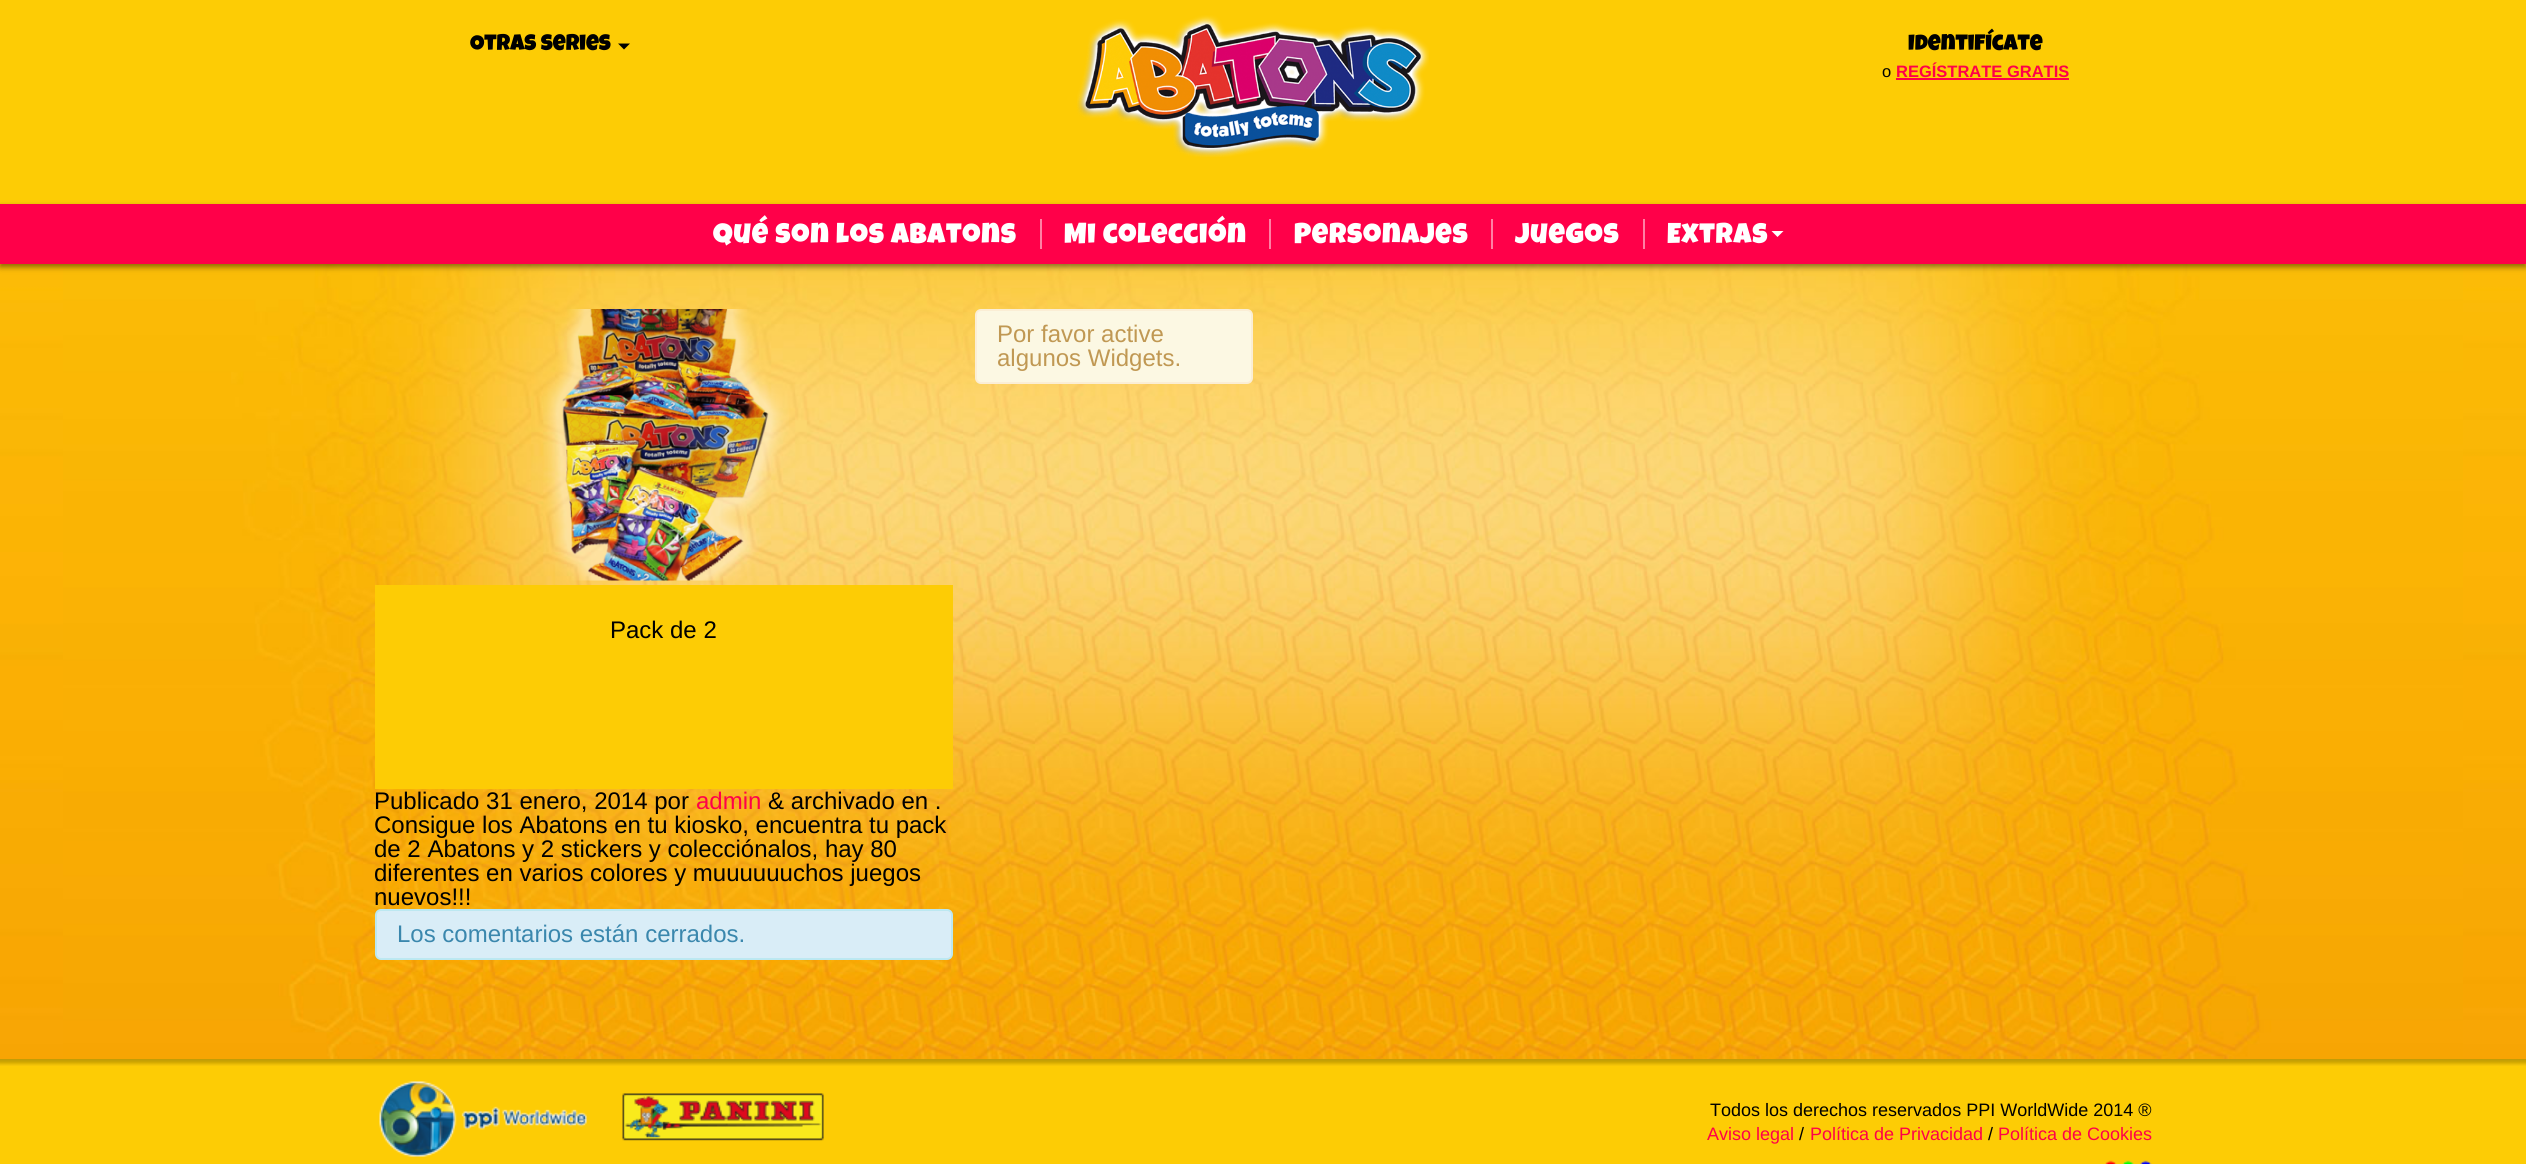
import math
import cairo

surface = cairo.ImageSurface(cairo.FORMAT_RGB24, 2526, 1164)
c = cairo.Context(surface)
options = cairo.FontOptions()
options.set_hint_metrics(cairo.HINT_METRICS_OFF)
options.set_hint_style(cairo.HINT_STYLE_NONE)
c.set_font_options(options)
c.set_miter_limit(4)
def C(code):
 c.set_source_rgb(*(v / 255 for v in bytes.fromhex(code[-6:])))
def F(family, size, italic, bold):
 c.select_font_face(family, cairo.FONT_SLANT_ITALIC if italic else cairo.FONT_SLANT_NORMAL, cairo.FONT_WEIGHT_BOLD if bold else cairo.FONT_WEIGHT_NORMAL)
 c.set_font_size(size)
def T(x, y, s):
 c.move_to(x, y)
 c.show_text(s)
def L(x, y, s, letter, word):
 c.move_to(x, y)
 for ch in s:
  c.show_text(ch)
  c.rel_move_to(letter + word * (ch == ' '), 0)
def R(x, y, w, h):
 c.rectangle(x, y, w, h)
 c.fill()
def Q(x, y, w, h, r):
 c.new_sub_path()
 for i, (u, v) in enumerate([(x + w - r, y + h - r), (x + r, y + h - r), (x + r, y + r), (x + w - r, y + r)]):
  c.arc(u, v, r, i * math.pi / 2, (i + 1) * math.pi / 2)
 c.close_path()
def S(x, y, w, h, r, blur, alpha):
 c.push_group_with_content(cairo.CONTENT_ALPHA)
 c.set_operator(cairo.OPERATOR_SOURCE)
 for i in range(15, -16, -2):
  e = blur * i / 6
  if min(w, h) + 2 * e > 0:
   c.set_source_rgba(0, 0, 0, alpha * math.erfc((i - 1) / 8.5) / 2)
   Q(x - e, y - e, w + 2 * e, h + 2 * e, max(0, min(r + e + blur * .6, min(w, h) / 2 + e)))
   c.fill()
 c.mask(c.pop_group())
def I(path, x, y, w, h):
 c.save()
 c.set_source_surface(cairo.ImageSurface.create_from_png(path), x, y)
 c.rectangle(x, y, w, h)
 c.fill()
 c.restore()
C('ffffff')
c.paint()
I('1.png',0,264,2526,795)
I('2.png',63,264,2400,795)
C('fdcc05')
R(0,0,2526,204)
I('3.png',1077,15,352,142)
F('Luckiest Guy',22.5,0,0)
C('000000')
T(470,50,'Otras series')
c.new_path()
c.move_to(618,43.5)
c.line_to(630,43.5)
c.line_to(624,49.5)
c.close_path()
c.fill()
T(1908,50,'Identifícate')
F('Liberation Sans',16.5,0,0)
T(1882,77,'o')
F('Liberation Sans',16.5,0,1)
C('ff0049')
T(1896,77,'REGÍSTRATE GRATIS')
R(1896,78,173,2)
C('000000')
S(0,207,2526,60,0,3,.45)
C('ff0049')
R(0,204,2526,60)
F('Luckiest Guy',28.5,0,0)
C('ffffff')
L(713,243,'qué son los abatons',.8,0)
C('ff80a4')
R(1040,219,2,30)
C('ffffff')
L(1064,243,'Mi colección',.8,0)
C('ff80a4')
R(1269,219,2,30)
C('ffffff')
L(1294,243,'Personajes',.8,0)
C('ff80a4')
R(1491,219,2,30)
C('ffffff')
L(1515,243,'Juegos',.8,0)
C('ff80a4')
R(1643,219,2,30)
C('ffffff')
L(1667,243,'Extras',.8,0)
c.new_path()
c.move_to(1771.5,231)
c.line_to(1783.5,231)
c.line_to(1777.5,237)
c.close_path()
c.fill()
C('fcf8e3')
Q(976,310,276,73,5)
c.fill_preserve()
C('fbeed5')
c.stroke()
F('Liberation Sans',24,0,0)
C('c09853')
T(997,342,'Por favor active')
T(997,366,'algunos Widgets.')
I('4.png',540,309,249,272)
C('fdcc05')
R(375,585,578,204)
C('000000')
T(610,638,'Pack de 2')
T(374,809,'Publicado 31 enero, 2014 por')
C('ff0049')
T(696,809,'admin')
C('000000')
T(768,809,'& archivado en .')
T(374,833,'Consigue los Abatons en tu kiosko, encuentra tu pack')
T(374,857,'de 2 Abatons y 2 stickers y colecciónalos, hay 80')
T(374,881,'diferentes en varios colores y muuuuuuchos juegos')
T(374,905,'nuevos!!!')
C('d9edf7')
Q(376,910,576,49,5)
c.fill_preserve()
C('bce8f1')
c.stroke()
C('3a87ad')
T(397,942,'Los comentarios están cerrados.')
C('fdcc05')
R(0,1066,2526,98)
I('5.png',0,1059,2526,7)
I('6.png',379,1081,208,76)
I('7.png',622,1093,202,48)
F('Liberation Sans',18,0,0)
C('000000')
T(1710,1116,'Todos los derechos reservados PPI WorldWide 2014 ®')
C('ff0049')
T(1707,1140,'Aviso legal')
C('000000')
T(1799,1140,'/')
C('ff0049')
T(1810,1140,'Política de Privacidad')
C('000000')
T(1988,1140,'/')
C('ff0049')
T(1998,1140,'Política de Cookies')
I('8.png',2105,1160,47,4)
surface.write_to_png('o.png')
